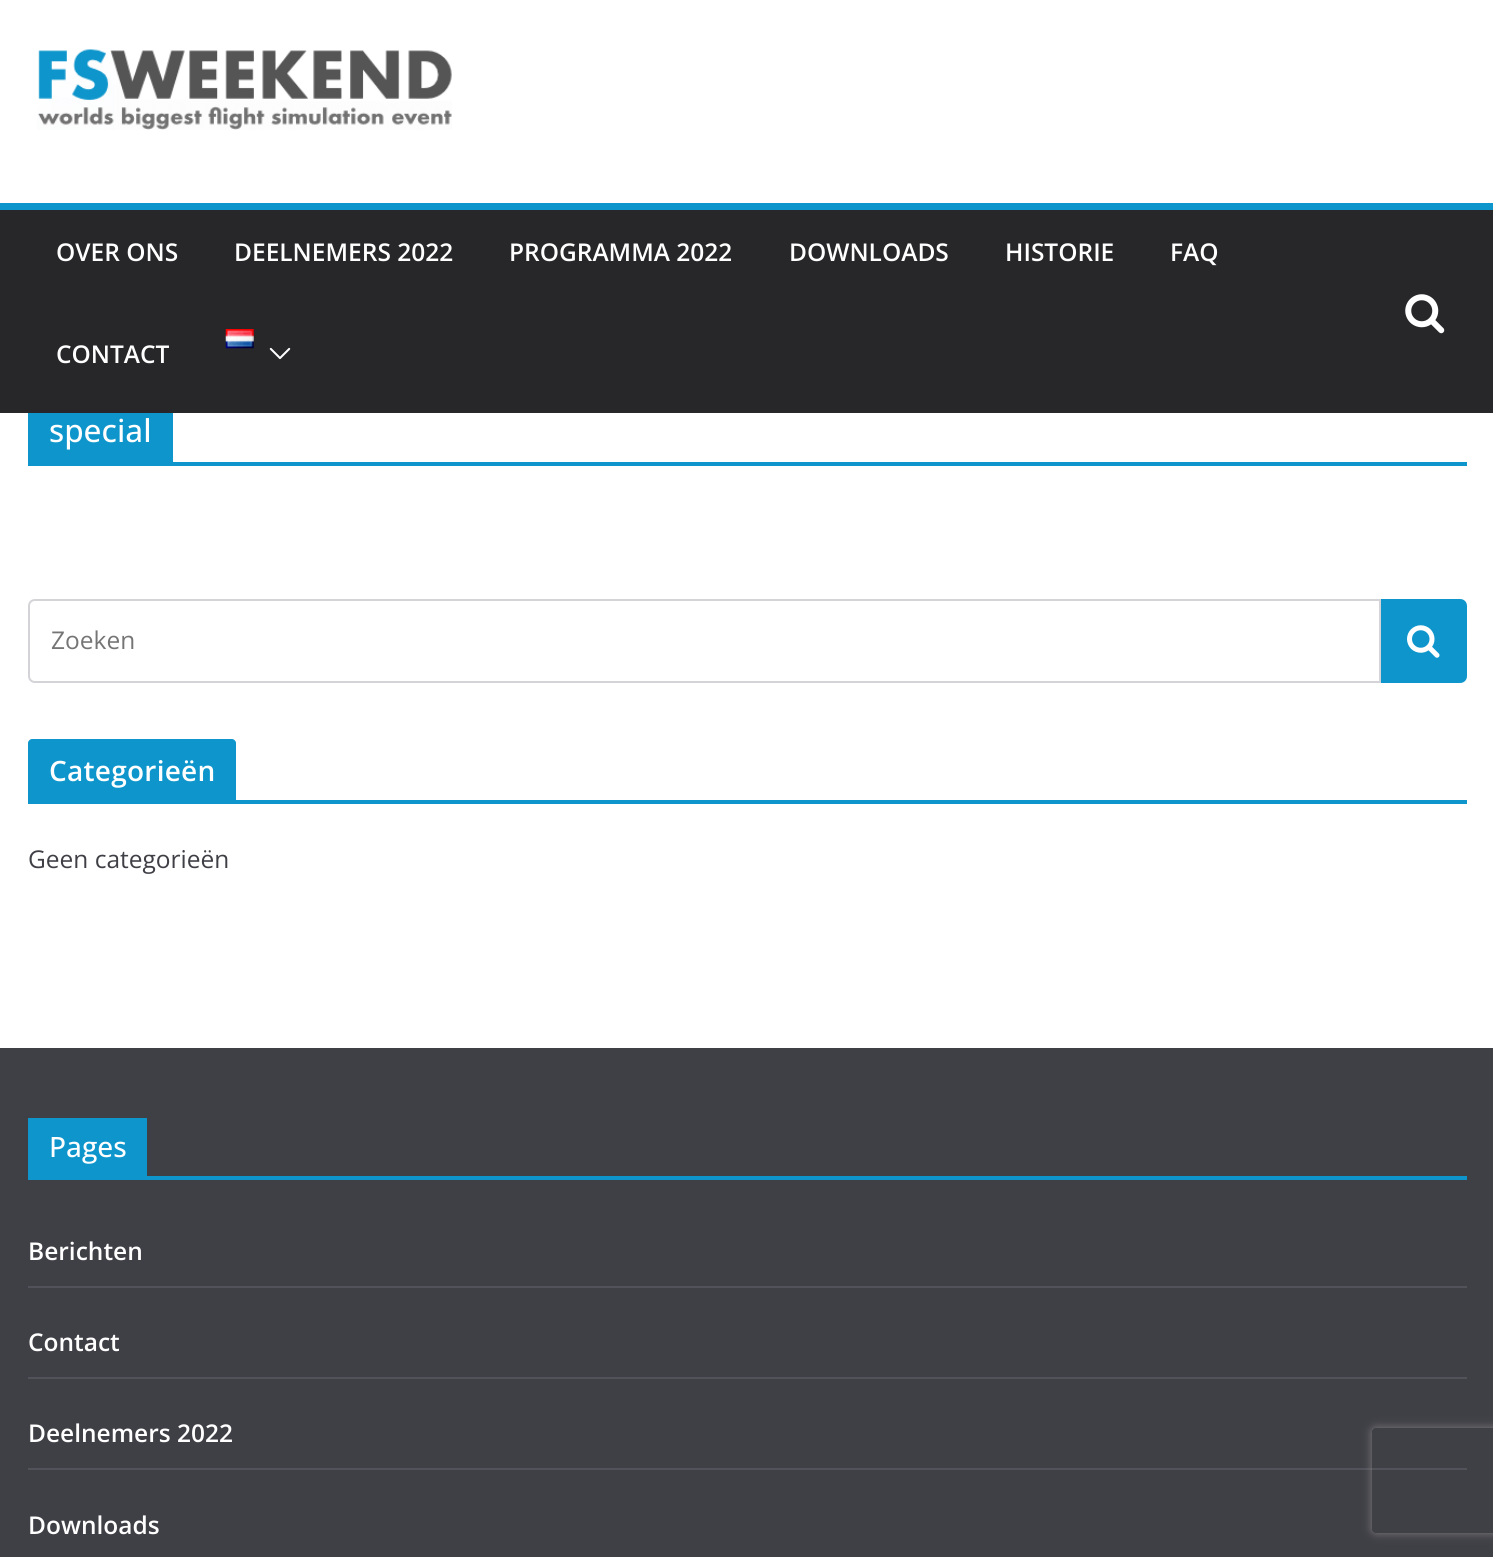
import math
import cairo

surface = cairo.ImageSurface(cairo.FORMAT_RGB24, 1493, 1557)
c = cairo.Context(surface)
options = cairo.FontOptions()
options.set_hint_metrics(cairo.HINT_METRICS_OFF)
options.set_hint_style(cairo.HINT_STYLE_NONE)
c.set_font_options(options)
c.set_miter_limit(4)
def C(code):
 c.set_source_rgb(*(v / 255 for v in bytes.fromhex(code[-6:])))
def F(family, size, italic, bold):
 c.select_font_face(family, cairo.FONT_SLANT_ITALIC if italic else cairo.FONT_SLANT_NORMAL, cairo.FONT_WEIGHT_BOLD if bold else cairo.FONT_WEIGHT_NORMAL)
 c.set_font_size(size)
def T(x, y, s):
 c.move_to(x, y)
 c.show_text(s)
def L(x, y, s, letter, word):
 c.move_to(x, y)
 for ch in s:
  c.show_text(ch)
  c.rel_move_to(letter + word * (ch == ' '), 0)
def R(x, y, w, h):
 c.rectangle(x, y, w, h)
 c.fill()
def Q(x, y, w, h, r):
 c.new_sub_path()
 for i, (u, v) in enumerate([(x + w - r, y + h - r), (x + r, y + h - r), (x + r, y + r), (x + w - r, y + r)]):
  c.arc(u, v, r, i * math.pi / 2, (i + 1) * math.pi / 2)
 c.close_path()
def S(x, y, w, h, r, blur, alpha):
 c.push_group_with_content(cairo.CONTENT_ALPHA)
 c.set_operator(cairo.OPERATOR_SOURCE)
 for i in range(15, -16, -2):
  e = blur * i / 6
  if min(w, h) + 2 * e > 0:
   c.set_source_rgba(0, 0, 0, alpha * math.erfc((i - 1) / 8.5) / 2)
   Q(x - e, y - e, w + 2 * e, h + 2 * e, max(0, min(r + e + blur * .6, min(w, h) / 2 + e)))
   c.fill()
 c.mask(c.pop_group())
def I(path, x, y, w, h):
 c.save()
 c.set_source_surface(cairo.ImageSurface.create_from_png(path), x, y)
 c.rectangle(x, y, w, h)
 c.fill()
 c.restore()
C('ffffff')
c.paint()
I('1.png',37,49,415,81)
C('27272a')
R(0,210,1493,203)
C('0e96cc')
R(0,203,1493,7)
F('Open Sans SemiBold',24.5,0,0)
C('ffffff')
T(56,261,'OVER ONS')
T(234,261,'DEELNEMERS 2022')
T(509,261,'PROGRAMMA 2022')
T(789,261,'DOWNLOADS')
T(1005,261,'HISTORIE')
T(1170,261,'FAQ')
T(56,363,'CONTACT')
I('2.png',225,329,29,20)
I('3.png',269,347,22,13)
I('4.png',1405,294,40,40)
C('0e96cc')
R(28,462,1439,4)
R(28,413,145,49)
F('Open Sans Medium',31.5,0,0)
C('ffffff')
T(49,442,'special')
c.new_path()
c.move_to(35,600)
c.line_to(1380,600)
c.line_to(1380,682)
c.line_to(35,682)
c.curve_to(31.5,682,29,679.5,29,676)
c.line_to(29,606)
c.curve_to(29,602.5,31.5,600,35,600)
c.close_path()
C('d4d4d8')
c.stroke()
F('Open Sans',24.5,0,0)
C('757575')
T(51,649,'Zoeken')
C('0e96cc')
c.new_path()
c.move_to(1382,600)
c.line_to(1460,600)
c.curve_to(1463.5,600,1466,602.5,1466,606)
c.line_to(1466,676)
c.curve_to(1466,679.5,1463.5,682,1460,682)
c.line_to(1382,682)
c.close_path()
c.fill_preserve()
c.stroke()
I('5.png',1407,625,33,33)
R(28,800,1439,4)
c.new_path()
c.move_to(32,739)
c.line_to(232,739)
c.curve_to(234,739,236,741,236,743)
c.line_to(236,800)
c.line_to(28,800)
c.line_to(28,743)
c.curve_to(28,741,30,739,32,739)
c.close_path()
c.fill()
F('Open Sans SemiBold',28,0,0)
C('ffffff')
L(49,781,'Categorieën',.25,0)
F('Open Sans',24.5,0,0)
C('3f3f46')
T(28,868,'Geen categorieën')
R(0,1048,1493,509)
C('0e96cc')
R(28,1176,1439,4)
R(28,1118,119,58)
F('Open Sans Medium',28,0,0)
C('ffffff')
T(49,1157,'Pages')
C('52525b')
R(28,1286,1439,2)
F('Open Sans SemiBold',24.5,0,0)
C('ffffff')
T(28,1260,'Berichten')
C('52525b')
R(28,1377,1439,2)
C('ffffff')
T(28,1351,'Contact')
C('52525b')
R(28,1468,1439,2)
C('ffffff')
T(28,1442,'Deelnemers 2022')
T(28,1534,'Downloads')
c.save()
c.set_fill_rule(cairo.FILL_RULE_EVEN_ODD)
c.new_path()
c.move_to(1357,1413)
c.line_to(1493,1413)
c.line_to(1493,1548)
c.line_to(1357,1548)
c.close_path()
c.move_to(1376,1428)
c.line_to(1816,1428)
c.curve_to(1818,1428,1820,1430,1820,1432)
c.line_to(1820,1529)
c.curve_to(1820,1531,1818,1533,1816,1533)
c.line_to(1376,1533)
c.curve_to(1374,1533,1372,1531,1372,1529)
c.line_to(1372,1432)
c.curve_to(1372,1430,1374,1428,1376,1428)
c.close_path()
c.clip()
C('808080')
S(1372,1428,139,105,4,4.5,1)
c.restore()
surface.write_to_png('o.png')
